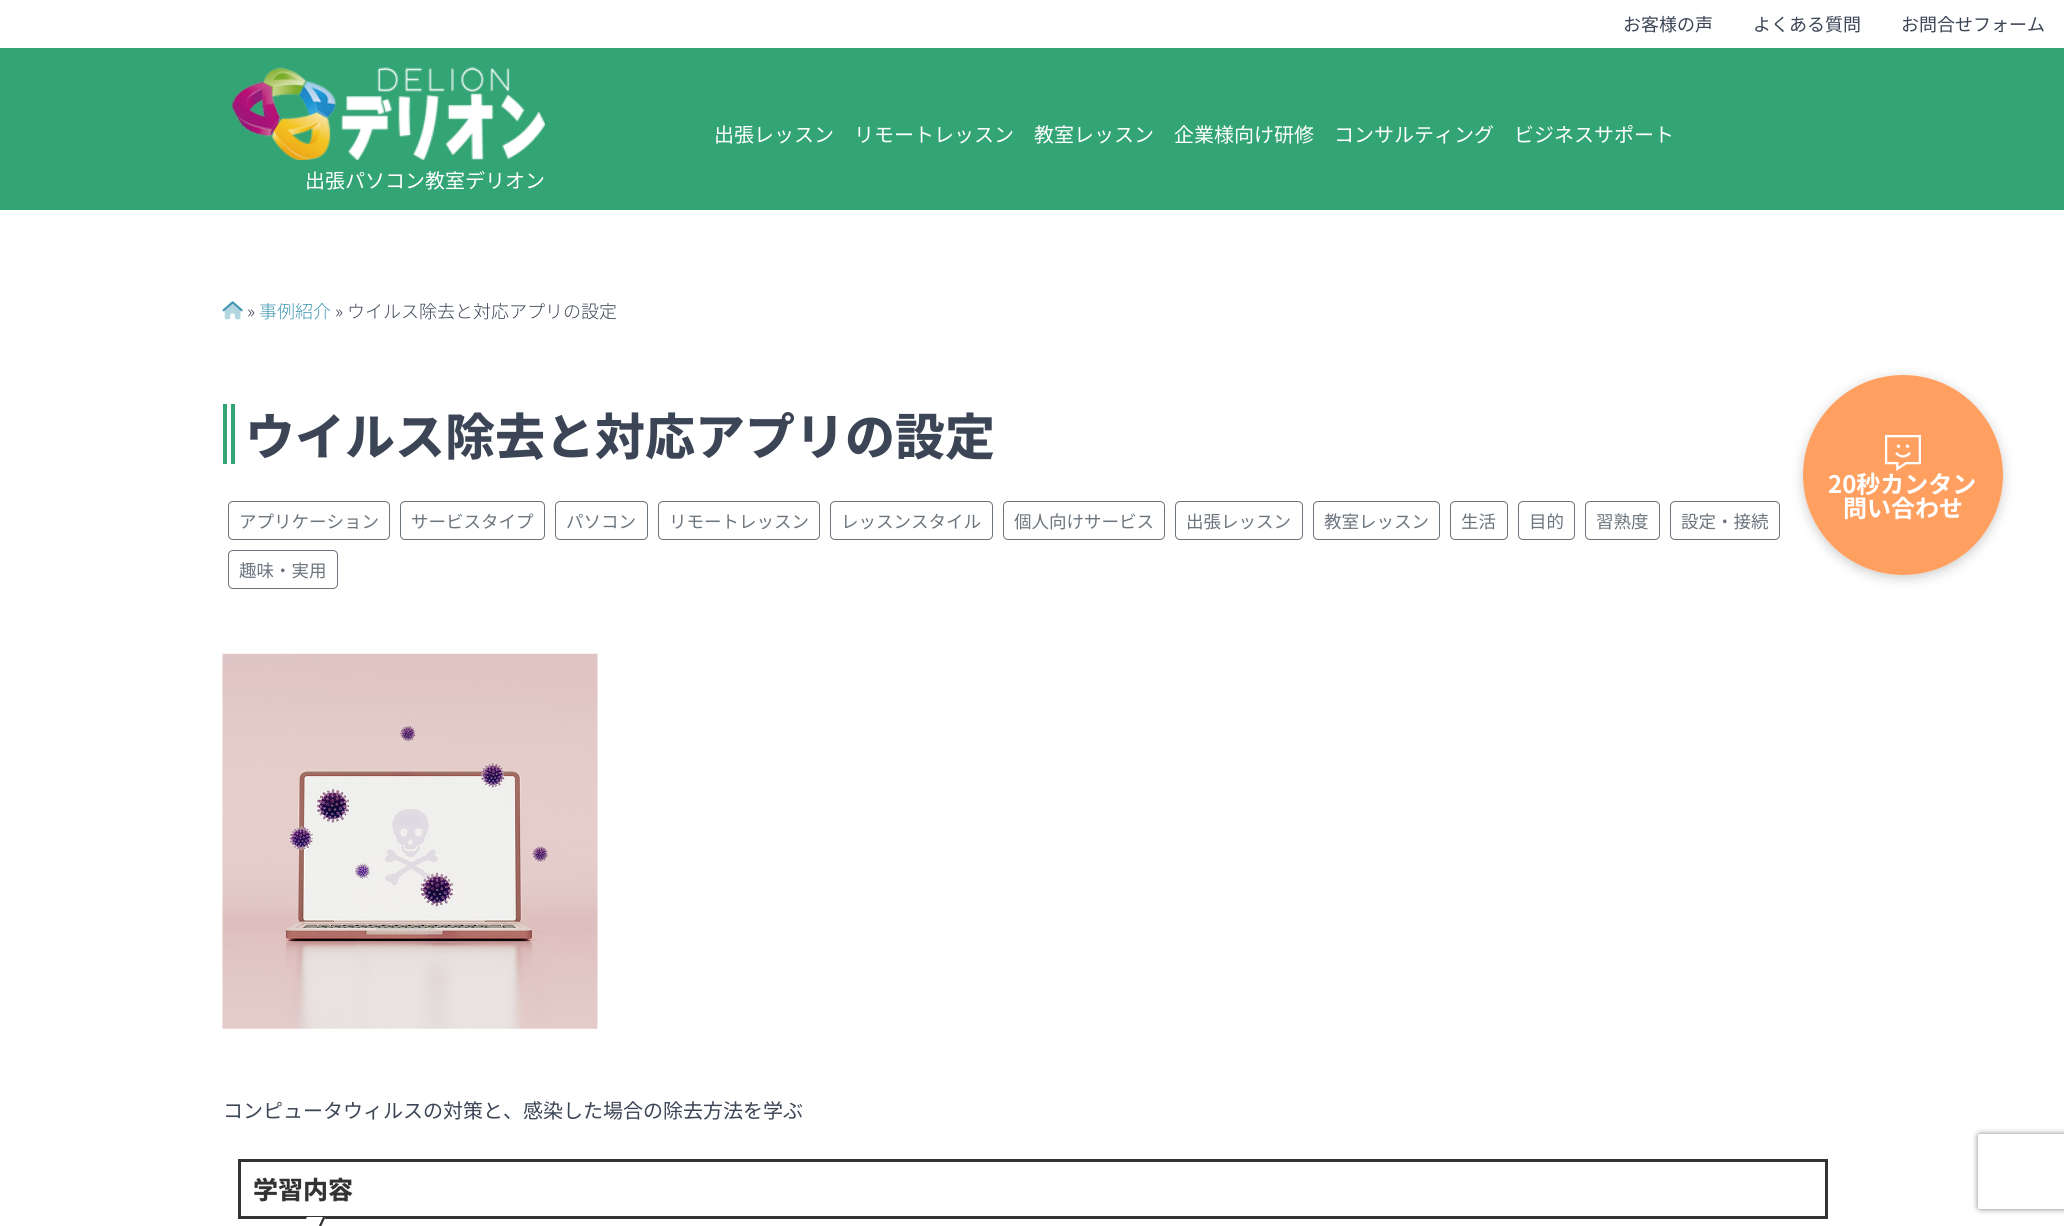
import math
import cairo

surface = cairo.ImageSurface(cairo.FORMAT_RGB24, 2064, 1226)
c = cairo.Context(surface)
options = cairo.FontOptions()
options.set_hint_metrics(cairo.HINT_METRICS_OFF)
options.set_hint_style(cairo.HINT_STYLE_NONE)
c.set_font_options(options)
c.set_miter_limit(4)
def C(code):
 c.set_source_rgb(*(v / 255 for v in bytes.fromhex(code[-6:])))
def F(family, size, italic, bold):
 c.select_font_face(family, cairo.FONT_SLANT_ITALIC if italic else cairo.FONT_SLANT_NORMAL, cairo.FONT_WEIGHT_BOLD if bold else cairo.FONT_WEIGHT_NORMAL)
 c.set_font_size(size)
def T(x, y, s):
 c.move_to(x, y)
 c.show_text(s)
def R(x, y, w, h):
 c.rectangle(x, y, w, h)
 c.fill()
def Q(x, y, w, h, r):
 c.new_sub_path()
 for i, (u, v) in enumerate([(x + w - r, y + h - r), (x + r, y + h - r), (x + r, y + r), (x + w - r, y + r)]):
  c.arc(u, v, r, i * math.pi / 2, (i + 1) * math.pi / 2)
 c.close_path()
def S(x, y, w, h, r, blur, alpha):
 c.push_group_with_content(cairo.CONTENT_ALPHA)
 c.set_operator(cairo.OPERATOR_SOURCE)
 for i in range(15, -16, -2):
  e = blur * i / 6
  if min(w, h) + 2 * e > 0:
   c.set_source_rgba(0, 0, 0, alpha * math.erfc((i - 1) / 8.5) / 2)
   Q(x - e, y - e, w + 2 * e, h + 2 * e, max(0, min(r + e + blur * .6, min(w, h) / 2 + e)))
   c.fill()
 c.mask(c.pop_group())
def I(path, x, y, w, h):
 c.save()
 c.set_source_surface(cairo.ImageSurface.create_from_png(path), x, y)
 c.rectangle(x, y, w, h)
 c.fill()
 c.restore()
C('ffffff')
c.paint()
F('Noto Sans JP',18,0,0)
C('3c4556')
T(1623,31,'お客様の声')
T(1753,31,'よくある質問')
T(1901,31,'お問合せフォーム')
C('33a474')
R(0,48,2064,162)
F('Noto Sans JP',20,0,0)
C('ffffff')
T(714,142,'出張レッスン')
T(854,142,'リモートレッスン')
T(1034,142,'教室レッスン')
T(1174,142,'企業様向け研修')
T(1334,142,'コンサルティング')
T(1514,142,'ビジネスサポート')
I('1.png',232,67,313,93)
T(305,188,'出張パソコン教室デリオン')
I('2.png',222,301,21,19)
F('Noto Sans JP Light',18,0,0)
C('3c4556')
T(247,318,'»')
C('4298b4')
T(259,318,'事例紹介')
C('3c4556')
T(335,318,'» ウイルス除去と対応アプリの設定')
C('33a474')
R(223,404,4,60)
R(231,404,4,60)
F('Noto Sans JP ExtraBold',50,0,0)
C('3c4556')
T(245,455,'ウイルス除去と対応アプリの設定')
Q(228.5,501.5,161,38,4.5)
C('6c757d')
c.set_line_width(1)
c.stroke()
F('Noto Sans JP',17.5,0,0)
T(239,528,'アプリケーション')
Q(400.5,501.5,144,38,4.5)
c.stroke()
T(411,528,'サービスタイプ')
Q(555.5,501.5,92,38,4.5)
c.stroke()
T(566,528,'パソコン')
Q(658.5,501.5,161,38,4.5)
c.stroke()
T(669,528,'リモートレッスン')
Q(830.5,501.5,162,38,4.5)
c.stroke()
T(841,528,'レッスンスタイル')
Q(1003.5,501.5,161,38,4.5)
c.stroke()
T(1014,528,'個人向けサービス')
Q(1175.5,501.5,127,38,4.5)
c.stroke()
T(1186,528,'出張レッスン')
Q(1313.5,501.5,126,38,4.5)
c.stroke()
T(1324,528,'教室レッスン')
Q(1450.5,501.5,57,38,4.5)
c.stroke()
T(1461,528,'生活')
Q(1518.5,501.5,56,38,4.5)
c.stroke()
T(1529,528,'目的')
Q(1585.5,501.5,74,38,4.5)
c.stroke()
T(1596,528,'習熟度')
Q(1670.5,501.5,109,38,4.5)
c.stroke()
T(1681,528,'設定・接続')
Q(228.5,550.5,109,38,4.5)
c.stroke()
T(239,577,'趣味・実用')
I('3.png',222,653,376,376)
F('Noto Sans JP',20,0,0)
C('3c4556')
T(223,1118,'コンピュータウィルスの対策と、感染した場合の除去方法を学ぶ')
c.rectangle(239.5,1160.5,1587,57)
C('333333')
c.set_line_width(3)
c.stroke()
F('Noto Sans JP ExtraBold',25,0,0)
T(253,1199,'学習内容')
C('ffffff')
c.new_path()
c.move_to(307,1217)
c.line_to(325.5,1217)
c.line_to(317,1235.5)
c.line_to(298,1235.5)
c.close_path()
c.fill()
C('333333')
c.new_path()
c.move_to(323,1217)
c.line_to(325.5,1217)
c.line_to(317,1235.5)
c.line_to(314.5,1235.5)
c.close_path()
c.fill()
c.save()
c.set_fill_rule(cairo.FILL_RULE_EVEN_ODD)
c.new_path()
c.move_to(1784,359)
c.line_to(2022,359)
c.line_to(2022,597)
c.line_to(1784,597)
c.close_path()
c.move_to(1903,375)
c.curve_to(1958,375,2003,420,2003,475)
c.curve_to(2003,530,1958,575,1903,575)
c.curve_to(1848,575,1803,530,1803,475)
c.curve_to(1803,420,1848,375,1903,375)
c.close_path()
c.clip()
C('000000')
S(1803,378,200,200,100,6,.2)
c.restore()
c.set_source_rgba(1,0.4,0,0.62)
c.arc(1903,475,100,0,2 * math.pi)
c.fill()
I('4.png',1885,435,36,36)
F('Noto Sans JP',24,0,1)
C('ffffff')
T(1828,493,'20秒カンタン')
T(1843,517,'問い合わせ')
c.save()
c.set_fill_rule(cairo.FILL_RULE_EVEN_ODD)
c.new_path()
c.move_to(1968,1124)
c.line_to(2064,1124)
c.line_to(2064,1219)
c.line_to(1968,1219)
c.close_path()
c.move_to(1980.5,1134)
c.line_to(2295.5,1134)
c.curve_to(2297,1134,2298,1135,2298,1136.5)
c.line_to(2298,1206.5)
c.curve_to(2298,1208,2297,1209,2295.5,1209)
c.line_to(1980.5,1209)
c.curve_to(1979,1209,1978,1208,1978,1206.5)
c.line_to(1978,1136.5)
c.curve_to(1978,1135,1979,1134,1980.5,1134)
c.close_path()
c.clip()
C('808080')
S(1978,1134,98,75,2.5,3,1)
c.restore()
surface.write_to_png('o.png')
